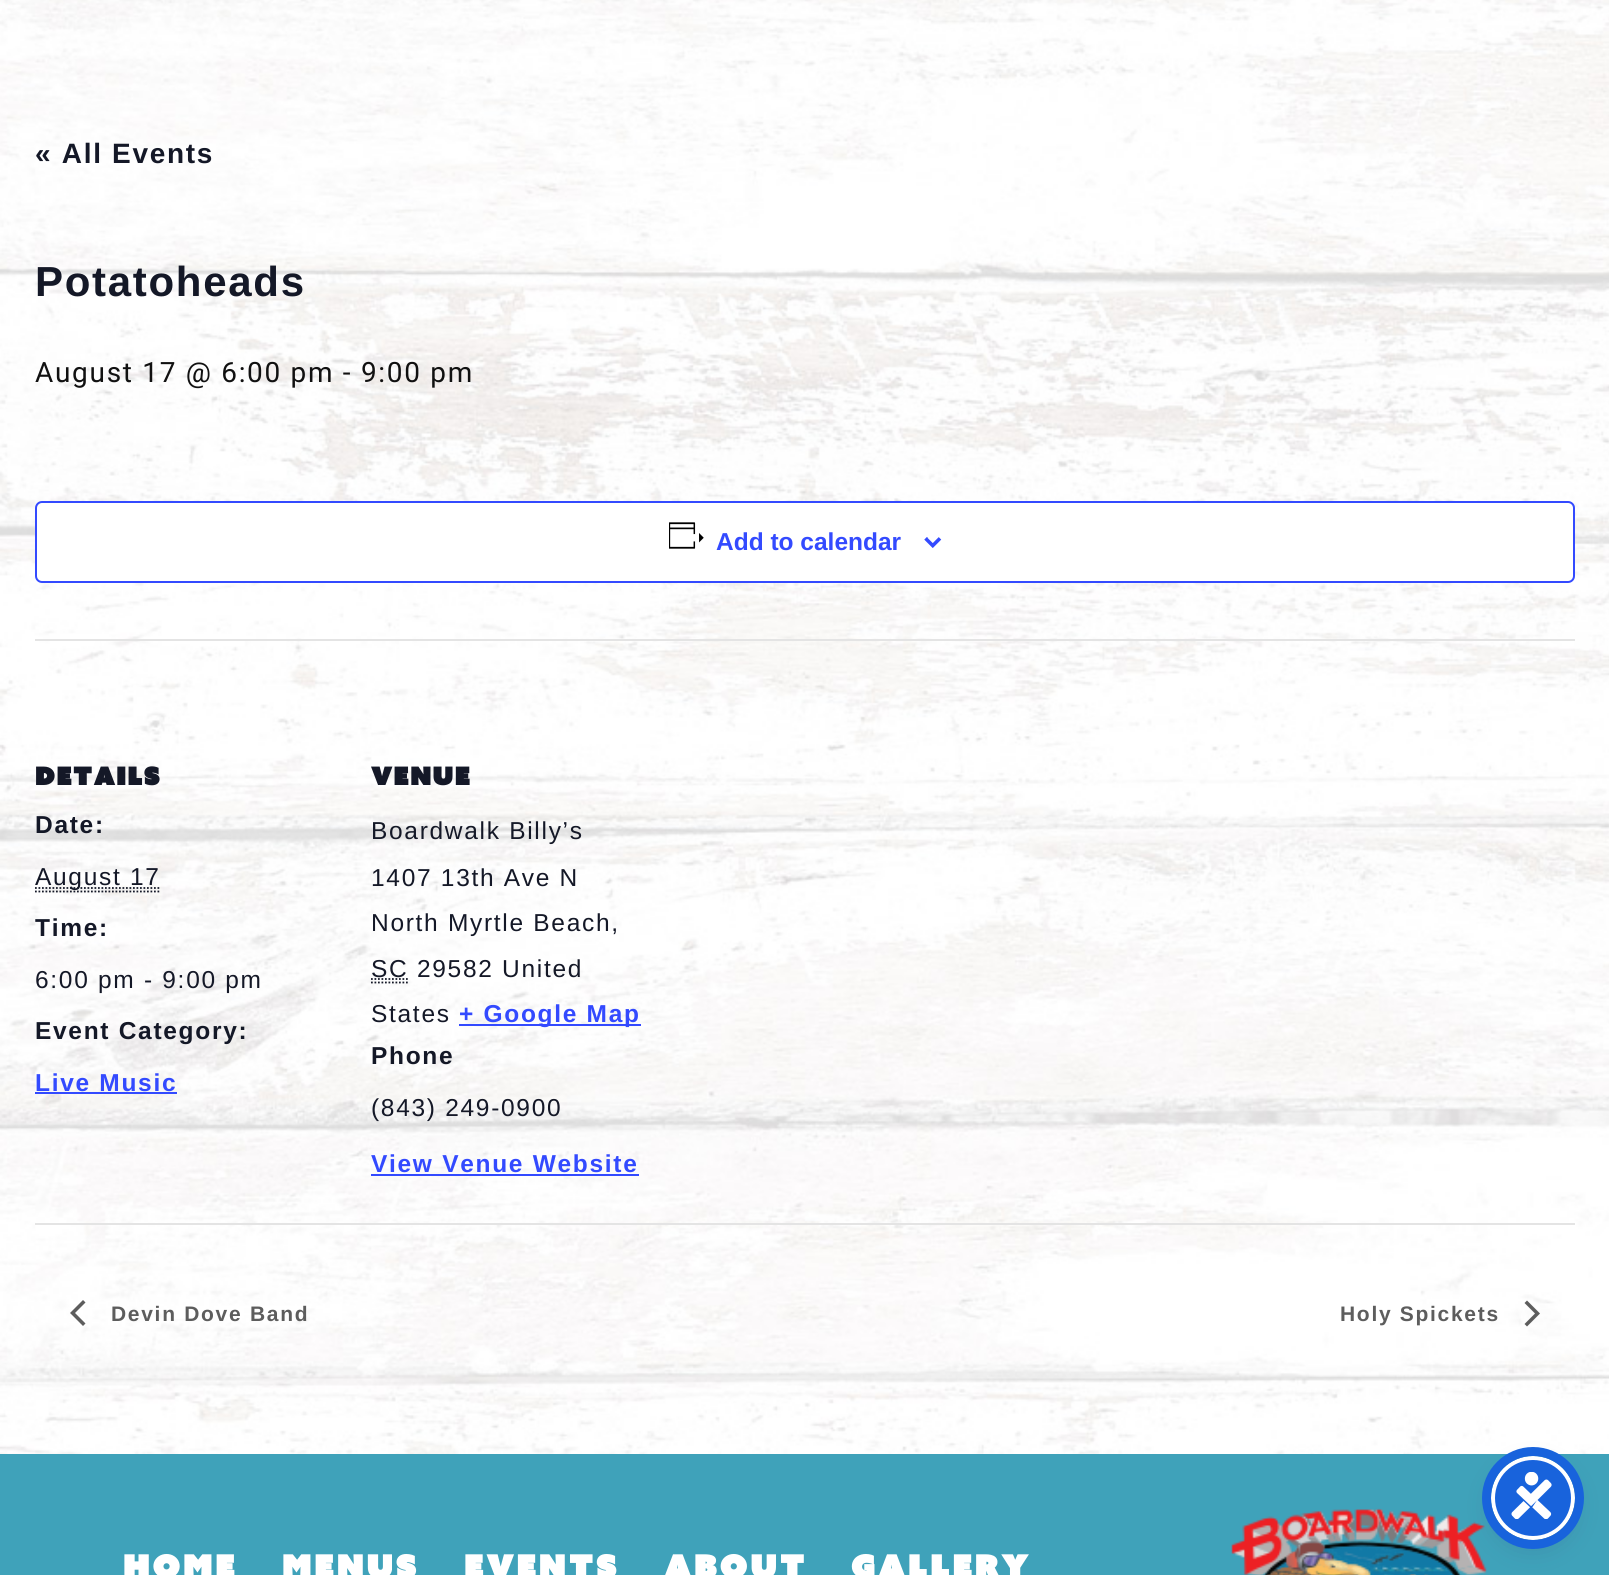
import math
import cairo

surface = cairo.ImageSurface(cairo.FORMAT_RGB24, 1609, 1575)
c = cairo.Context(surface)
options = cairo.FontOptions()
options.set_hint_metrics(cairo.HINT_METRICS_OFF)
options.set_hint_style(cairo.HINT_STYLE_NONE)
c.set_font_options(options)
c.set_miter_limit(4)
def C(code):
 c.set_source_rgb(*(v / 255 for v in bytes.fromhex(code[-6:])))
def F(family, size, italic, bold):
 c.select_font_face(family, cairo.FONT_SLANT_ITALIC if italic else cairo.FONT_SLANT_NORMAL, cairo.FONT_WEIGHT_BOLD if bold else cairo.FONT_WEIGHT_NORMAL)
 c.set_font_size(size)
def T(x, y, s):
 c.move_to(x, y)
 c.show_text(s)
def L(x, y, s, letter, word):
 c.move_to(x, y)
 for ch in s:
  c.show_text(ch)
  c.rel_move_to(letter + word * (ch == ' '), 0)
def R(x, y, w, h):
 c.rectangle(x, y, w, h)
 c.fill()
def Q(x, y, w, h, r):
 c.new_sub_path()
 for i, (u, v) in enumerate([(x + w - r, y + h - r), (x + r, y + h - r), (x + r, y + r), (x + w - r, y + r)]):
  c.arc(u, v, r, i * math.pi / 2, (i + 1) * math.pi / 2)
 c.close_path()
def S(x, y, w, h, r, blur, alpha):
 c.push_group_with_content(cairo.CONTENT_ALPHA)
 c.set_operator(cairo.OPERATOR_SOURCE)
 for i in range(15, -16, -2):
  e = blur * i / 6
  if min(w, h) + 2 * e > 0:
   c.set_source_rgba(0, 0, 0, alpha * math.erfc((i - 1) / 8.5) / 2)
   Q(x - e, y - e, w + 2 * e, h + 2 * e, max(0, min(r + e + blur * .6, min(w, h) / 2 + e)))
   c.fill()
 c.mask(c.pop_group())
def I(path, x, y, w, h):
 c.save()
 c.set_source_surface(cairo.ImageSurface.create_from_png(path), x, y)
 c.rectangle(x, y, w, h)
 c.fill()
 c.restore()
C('ffffff')
c.paint()
I('1.png',0,0,1609,1454)
F('Liberation Sans',28,0,1)
C('141827')
L(35,163,'« All Events',1.7,0)
F('Liberation Sans',42,0,1)
L(35,296,'Potatoheads',1.7,0)
F('Roboto',28,0,0)
C('111111')
L(35,382,'August 17 @ 6:00 pm - 9:00 pm',1.7,0)
C('ffffff')
Q(36,502,1538,80,6)
c.fill_preserve()
C('334aff')
c.stroke()
I('2.png',669,522,35,27)
F('Liberation Sans',24.5,0,1)
T(716,550,'Add to calendar')
I('3.png',924,537,18,11)
C('e4e4e4')
R(35,639,1540,2)
F('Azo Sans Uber',24.5,0,1)
C('141827')
L(35,785,'DETAILS',1.75,0)
F('Liberation Sans',24.5,0,1)
L(35,833,'Date:',1.7,0)
c.new_path()
c.move_to(35,891.5)
c.line_to(161,891.5)
c.set_line_width(1.8)
c.set_dash([1.75,1.75])
c.stroke()
c.new_path()
c.move_to(35,888)
c.line_to(160.5,888)
c.stroke()
F('Liberation Sans',24.5,0,0)
L(35,885,'August 17',1.7,0)
F('Liberation Sans',24.5,0,1)
L(35,936,'Time:',1.7,0)
F('Liberation Sans',24.5,0,0)
L(35,988,'6:00 pm - 9:00 pm',1.7,0)
F('Liberation Sans',24.5,0,1)
L(35,1039,'Event Category:',1.7,0)
C('334aff')
L(35,1091,'Live Music',1.7,0)
R(35,1092,142,2)
F('Azo Sans Uber',24.5,0,1)
C('141827')
L(371,785,'VENUE',1.75,0)
F('Liberation Sans',24.5,0,0)
L(371,839,'Boardwalk Billy’s',1.7,0)
L(371,886,'1407 13th Ave N',1.7,0)
L(371,931,'North Myrtle Beach,',1.7,0)
L(371,977,'SC 29582 United',1.7,0)
c.new_path()
c.move_to(371,982.5)
c.line_to(408,982.5)
c.move_to(371,979)
c.line_to(408.5,979)
c.stroke()
L(371,1022,'States',1.7,0)
C('334aff')
R(459,1024,182,2)
F('Liberation Sans',24.5,0,1)
L(459,1022,'+ Google Map',1.7,0)
C('141827')
L(371,1064,'Phone',1.7,0)
F('Liberation Sans',24.5,0,0)
L(371,1116,'(843) 249-0900',1.7,0)
F('Liberation Sans',24.5,0,1)
C('334aff')
L(371,1172,'View Venue Website',1.7,0)
R(371,1174,268,2)
C('e4e4e4')
R(35,1223,1540,2)
C('5d5d5d')
c.new_path()
c.move_to(85.5,1323.5)
c.line_to(83,1326)
c.line_to(70,1313)
c.line_to(83,1300)
c.line_to(85.5,1302.5)
c.line_to(75,1313)
c.close_path()
c.fill()
F('Liberation Sans',21,0,1)
L(111,1321,'Devin Dove Band',1.7,0)
L(1340,1321,'Holy Spickets',1.7,0)
c.new_path()
c.move_to(1524.5,1303)
c.line_to(1527,1300.5)
c.line_to(1540,1313.5)
c.line_to(1527,1326.5)
c.line_to(1524.5,1324)
c.line_to(1535,1313.5)
c.close_path()
c.fill()
C('3fa2ba')
R(0,1454,1609,121)
F('Azo Sans Uber',31.5,0,1)
C('ffffff')
L(123,1578,'Home',3.25,0)
L(282,1578,'Menus',3.25,0)
L(464,1578,'Events',3.25,0)
L(664,1578,'About',3.25,0)
L(851,1578,'Gallery',3.25,0)
I('4.png',1231,1508,256,67)
C('5d6494')
S(1491,1460,84,84,42,3.5,.2)
C('252c61')
S(1491,1465,84,84,42,13,.15)
C('1863dc')
c.arc(1533,1498,40,0,2 * math.pi)
c.fill_preserve()
C('ffffff')
c.set_line_width(4)
c.set_dash([])
c.stroke()
c.arc(1533,1498,46.5,0,2 * math.pi)
C('1863dc')
c.set_line_width(9)
c.stroke()
I('5.png',1511,1472,41,47)
surface.write_to_png('o.png')
